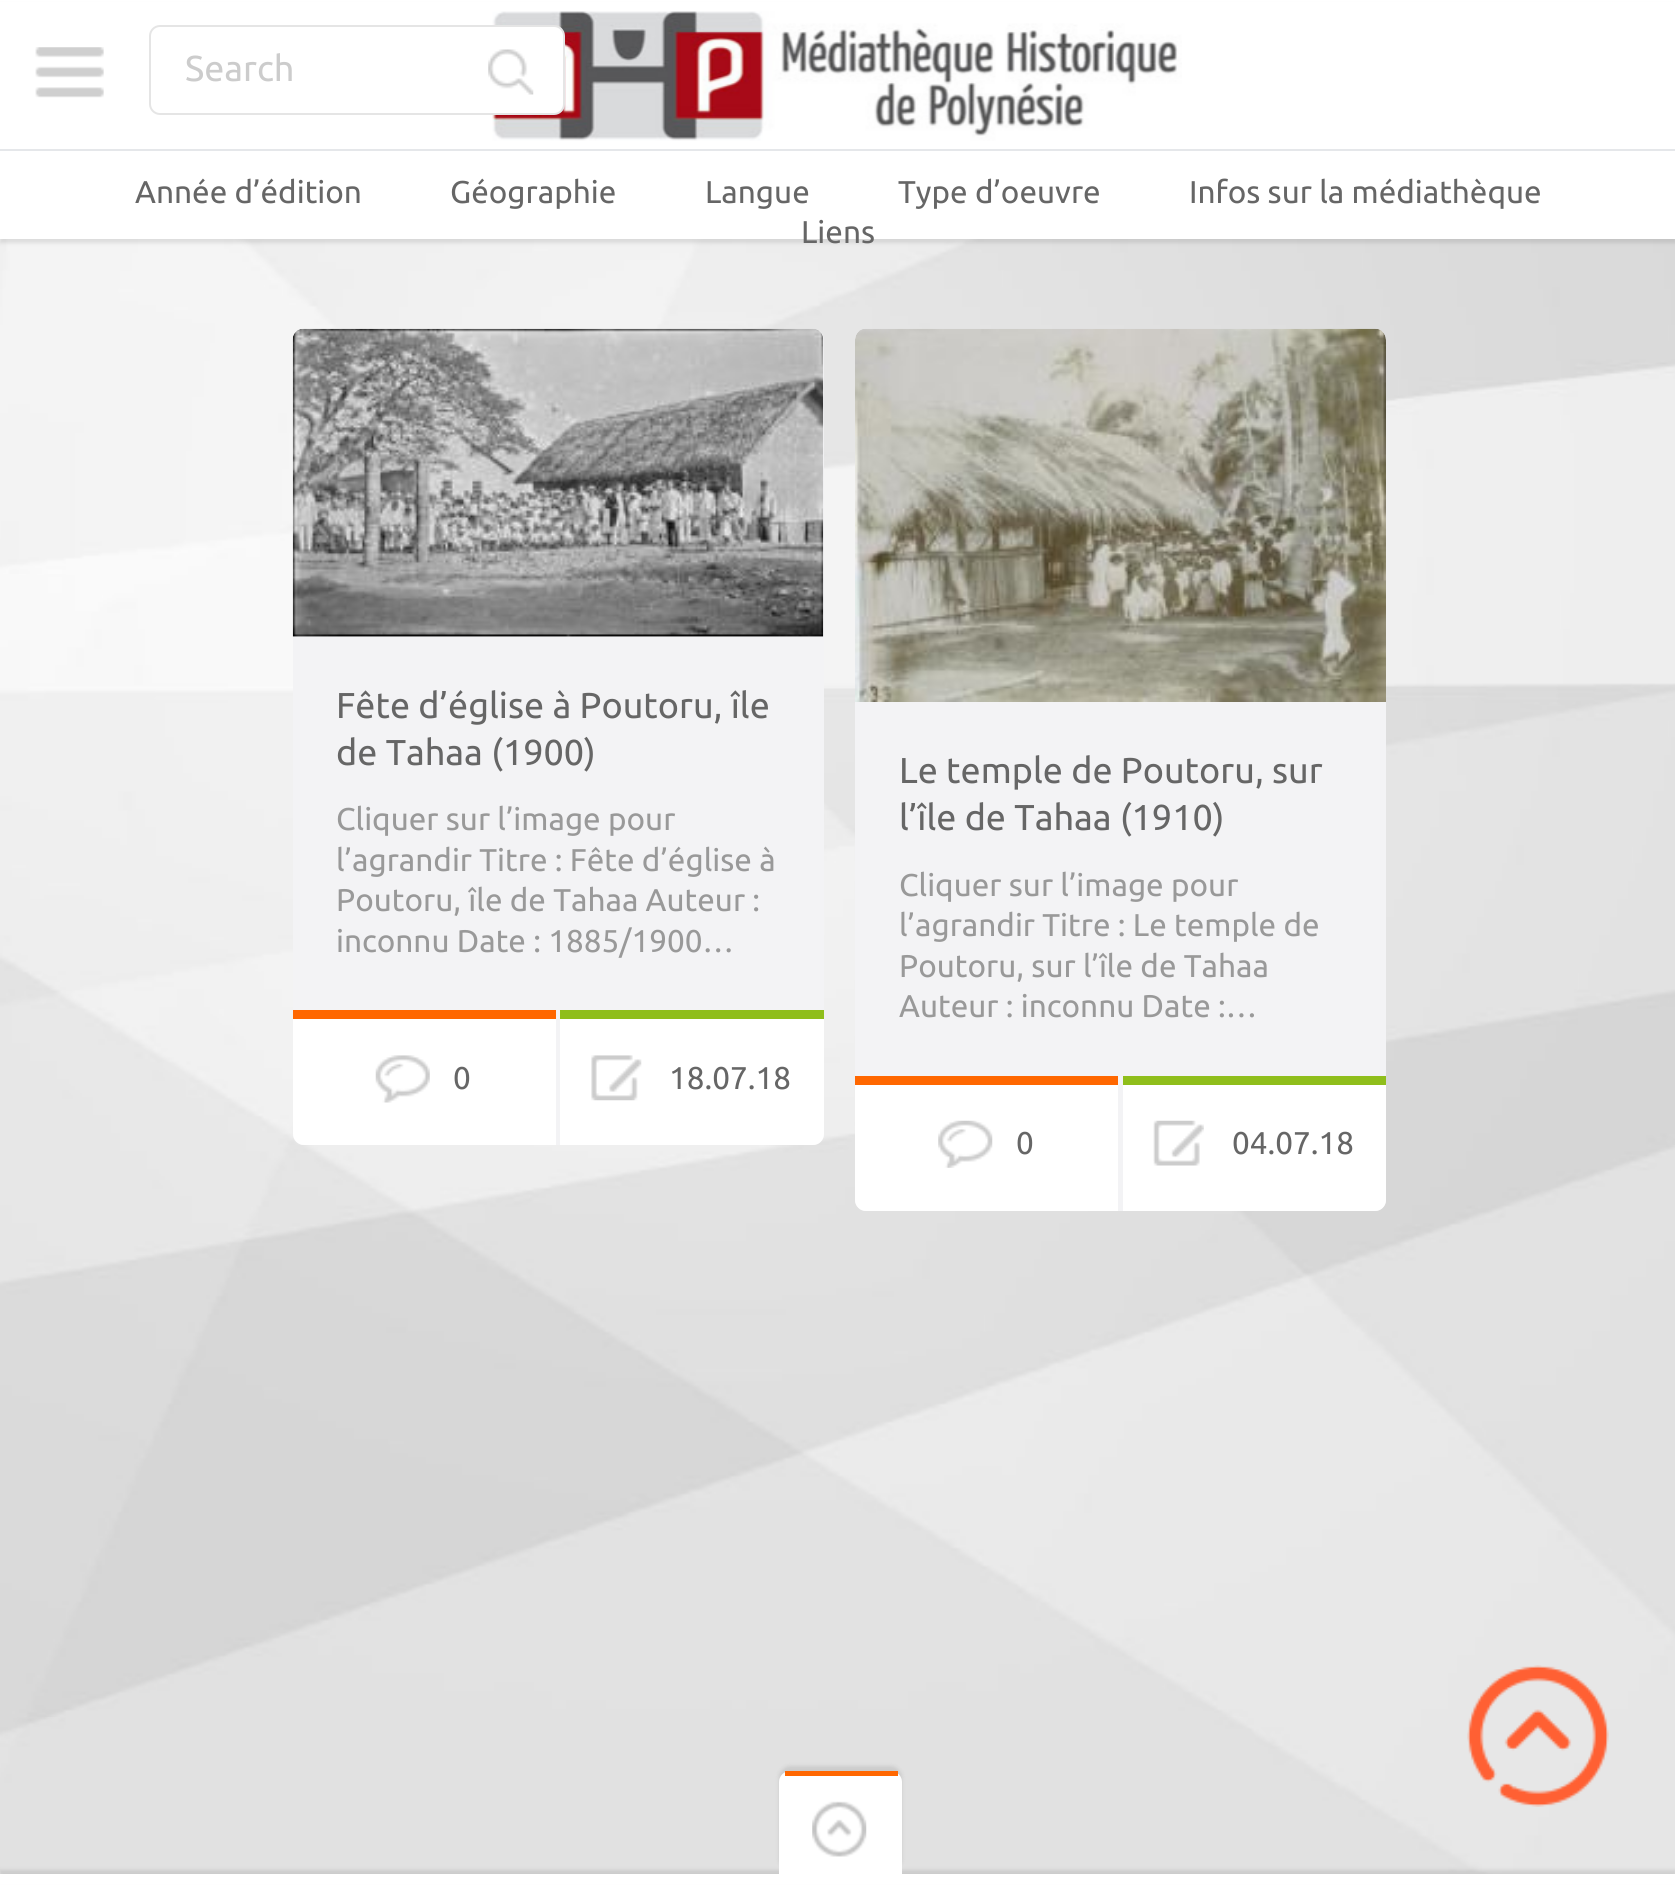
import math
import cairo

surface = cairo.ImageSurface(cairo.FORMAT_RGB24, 1675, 1885)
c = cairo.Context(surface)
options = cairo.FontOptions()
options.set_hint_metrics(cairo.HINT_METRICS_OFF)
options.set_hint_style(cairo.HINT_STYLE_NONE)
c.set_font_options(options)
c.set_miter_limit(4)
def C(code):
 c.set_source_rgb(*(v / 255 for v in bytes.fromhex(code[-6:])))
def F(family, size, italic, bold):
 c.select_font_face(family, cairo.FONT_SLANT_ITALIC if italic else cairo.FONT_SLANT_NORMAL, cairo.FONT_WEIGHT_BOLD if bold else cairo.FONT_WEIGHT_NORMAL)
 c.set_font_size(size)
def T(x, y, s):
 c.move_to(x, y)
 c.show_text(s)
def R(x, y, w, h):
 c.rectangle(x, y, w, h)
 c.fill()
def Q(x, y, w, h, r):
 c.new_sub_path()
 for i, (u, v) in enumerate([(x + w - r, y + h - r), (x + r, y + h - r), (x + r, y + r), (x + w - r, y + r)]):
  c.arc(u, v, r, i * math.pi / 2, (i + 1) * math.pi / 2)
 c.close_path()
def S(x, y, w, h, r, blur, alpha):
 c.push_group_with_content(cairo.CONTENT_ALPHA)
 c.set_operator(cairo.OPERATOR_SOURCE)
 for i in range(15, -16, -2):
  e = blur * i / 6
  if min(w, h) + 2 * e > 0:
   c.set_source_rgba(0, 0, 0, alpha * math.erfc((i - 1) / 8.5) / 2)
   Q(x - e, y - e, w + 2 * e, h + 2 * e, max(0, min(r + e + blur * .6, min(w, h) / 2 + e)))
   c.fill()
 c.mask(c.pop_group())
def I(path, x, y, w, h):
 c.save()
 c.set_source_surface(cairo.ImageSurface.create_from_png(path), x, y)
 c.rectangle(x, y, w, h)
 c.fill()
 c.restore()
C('ffffff')
c.paint()
I('1.png',0,239,1675,1635)
C('000000')
S(0,5,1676,238,0,2,.1)
C('ffffff')
R(0,2,1675,237)
I('2.png',35,47,69,51)
I('4.png',492,11,690,130)
Q(150,26,414,88,10)
c.fill_preserve()
C('e5e5e5')
c.stroke()
F('Ubuntu',36,0,0)
C('cccccc')
T(185,81,'Search')
I('3.png',488,49,46,46)
C('e5e7ea')
R(0,149,1675,2)
F('Ubuntu',31.5,0,0)
C('666666')
T(135,203,'Année d’édition')
T(450,203,'Géographie')
T(705,203,'Langue')
T(898,203,'Type d’oeuvre')
T(1189,203,'Infos sur la médiathèque')
T(801,243,'Liens')
C('f3f3f5')
Q(293,329,531,816,11)
c.fill()
I('5.png',292,328,532,309)
F('Ubuntu',36,0,0)
C('666666')
T(336,718,'Fête d’église à Poutoru, île')
T(336,765,'de Tahaa (1900)')
F('Ubuntu',31.5,0,0)
C('999999')
T(336,830,'Cliquer sur l’image pour')
T(336,871,'l’agrandir Titre : Fête d’église à')
T(336,911,'Poutoru, île de Tahaa Auteur :')
T(336,952,'inconnu Date : 1885/1900…')
C('ffffff')
c.new_path()
c.move_to(293,1010)
c.line_to(556,1010)
c.line_to(556,1145)
c.line_to(304,1145)
c.curve_to(298,1145,293,1140,293,1134)
c.close_path()
c.fill()
C('ff6700')
R(293,1010,263,9)
I('6.png',375,1055,55,48)
C('666666')
T(453,1089,'0')
C('ffffff')
c.new_path()
c.move_to(560,1010)
c.line_to(824,1010)
c.line_to(824,1134)
c.curve_to(824,1140,819,1145,813,1145)
c.line_to(560,1145)
c.close_path()
c.fill()
C('8fbe1b')
R(560,1010,264,9)
I('7.png',591,1055,51,46)
C('666666')
T(669,1089,'18.07.18')
C('f3f3f5')
Q(855,329,531,882,11)
c.fill()
I('8.png',855,328,531,374)
F('Ubuntu',36,0,0)
C('666666')
T(899,783,'Le temple de Poutoru, sur')
T(899,830,'l’île de Tahaa (1910)')
F('Ubuntu',31.5,0,0)
C('999999')
T(899,896,'Cliquer sur l’image pour')
T(899,936,'l’agrandir Titre : Le temple de')
T(899,977,'Poutoru, sur l’île de Tahaa')
T(899,1017,'Auteur : inconnu Date :…')
C('ffffff')
c.new_path()
c.move_to(855,1076)
c.line_to(1118,1076)
c.line_to(1118,1211)
c.line_to(866,1211)
c.curve_to(860,1211,855,1206,855,1200)
c.close_path()
c.fill()
C('ff6700')
R(855,1076,263,9)
I('9.png',938,1120,55,48)
C('666666')
T(1016,1154,'0')
C('ffffff')
c.new_path()
c.move_to(1123,1076)
c.line_to(1386,1076)
c.line_to(1386,1200)
c.curve_to(1386,1206,1381,1211,1375,1211)
c.line_to(1123,1211)
c.close_path()
c.fill()
C('8fbe1b')
R(1123,1076,263,9)
I('10.png',1153,1120,51,46)
C('666666')
T(1232,1154,'04.07.18')
C('000000')
S(0,1870,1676,11,0,2,.1)
I('11.png',1467,1665,142,142)
C('ffffff')
R(0,1874,1675,10)
C('000000')
S(779,1766,123,104,11,2,.1)
C('ffffff')
c.new_path()
c.move_to(790,1771)
c.line_to(891,1771)
c.curve_to(897,1771,902,1776,902,1782)
c.line_to(902,1874)
c.line_to(779,1874)
c.line_to(779,1782)
c.curve_to(779,1776,784,1771,790,1771)
c.close_path()
c.fill()
I('12.png',812,1801,55,56)
C('ff6700')
R(785,1771,113,5)
surface.write_to_png('o.png')
